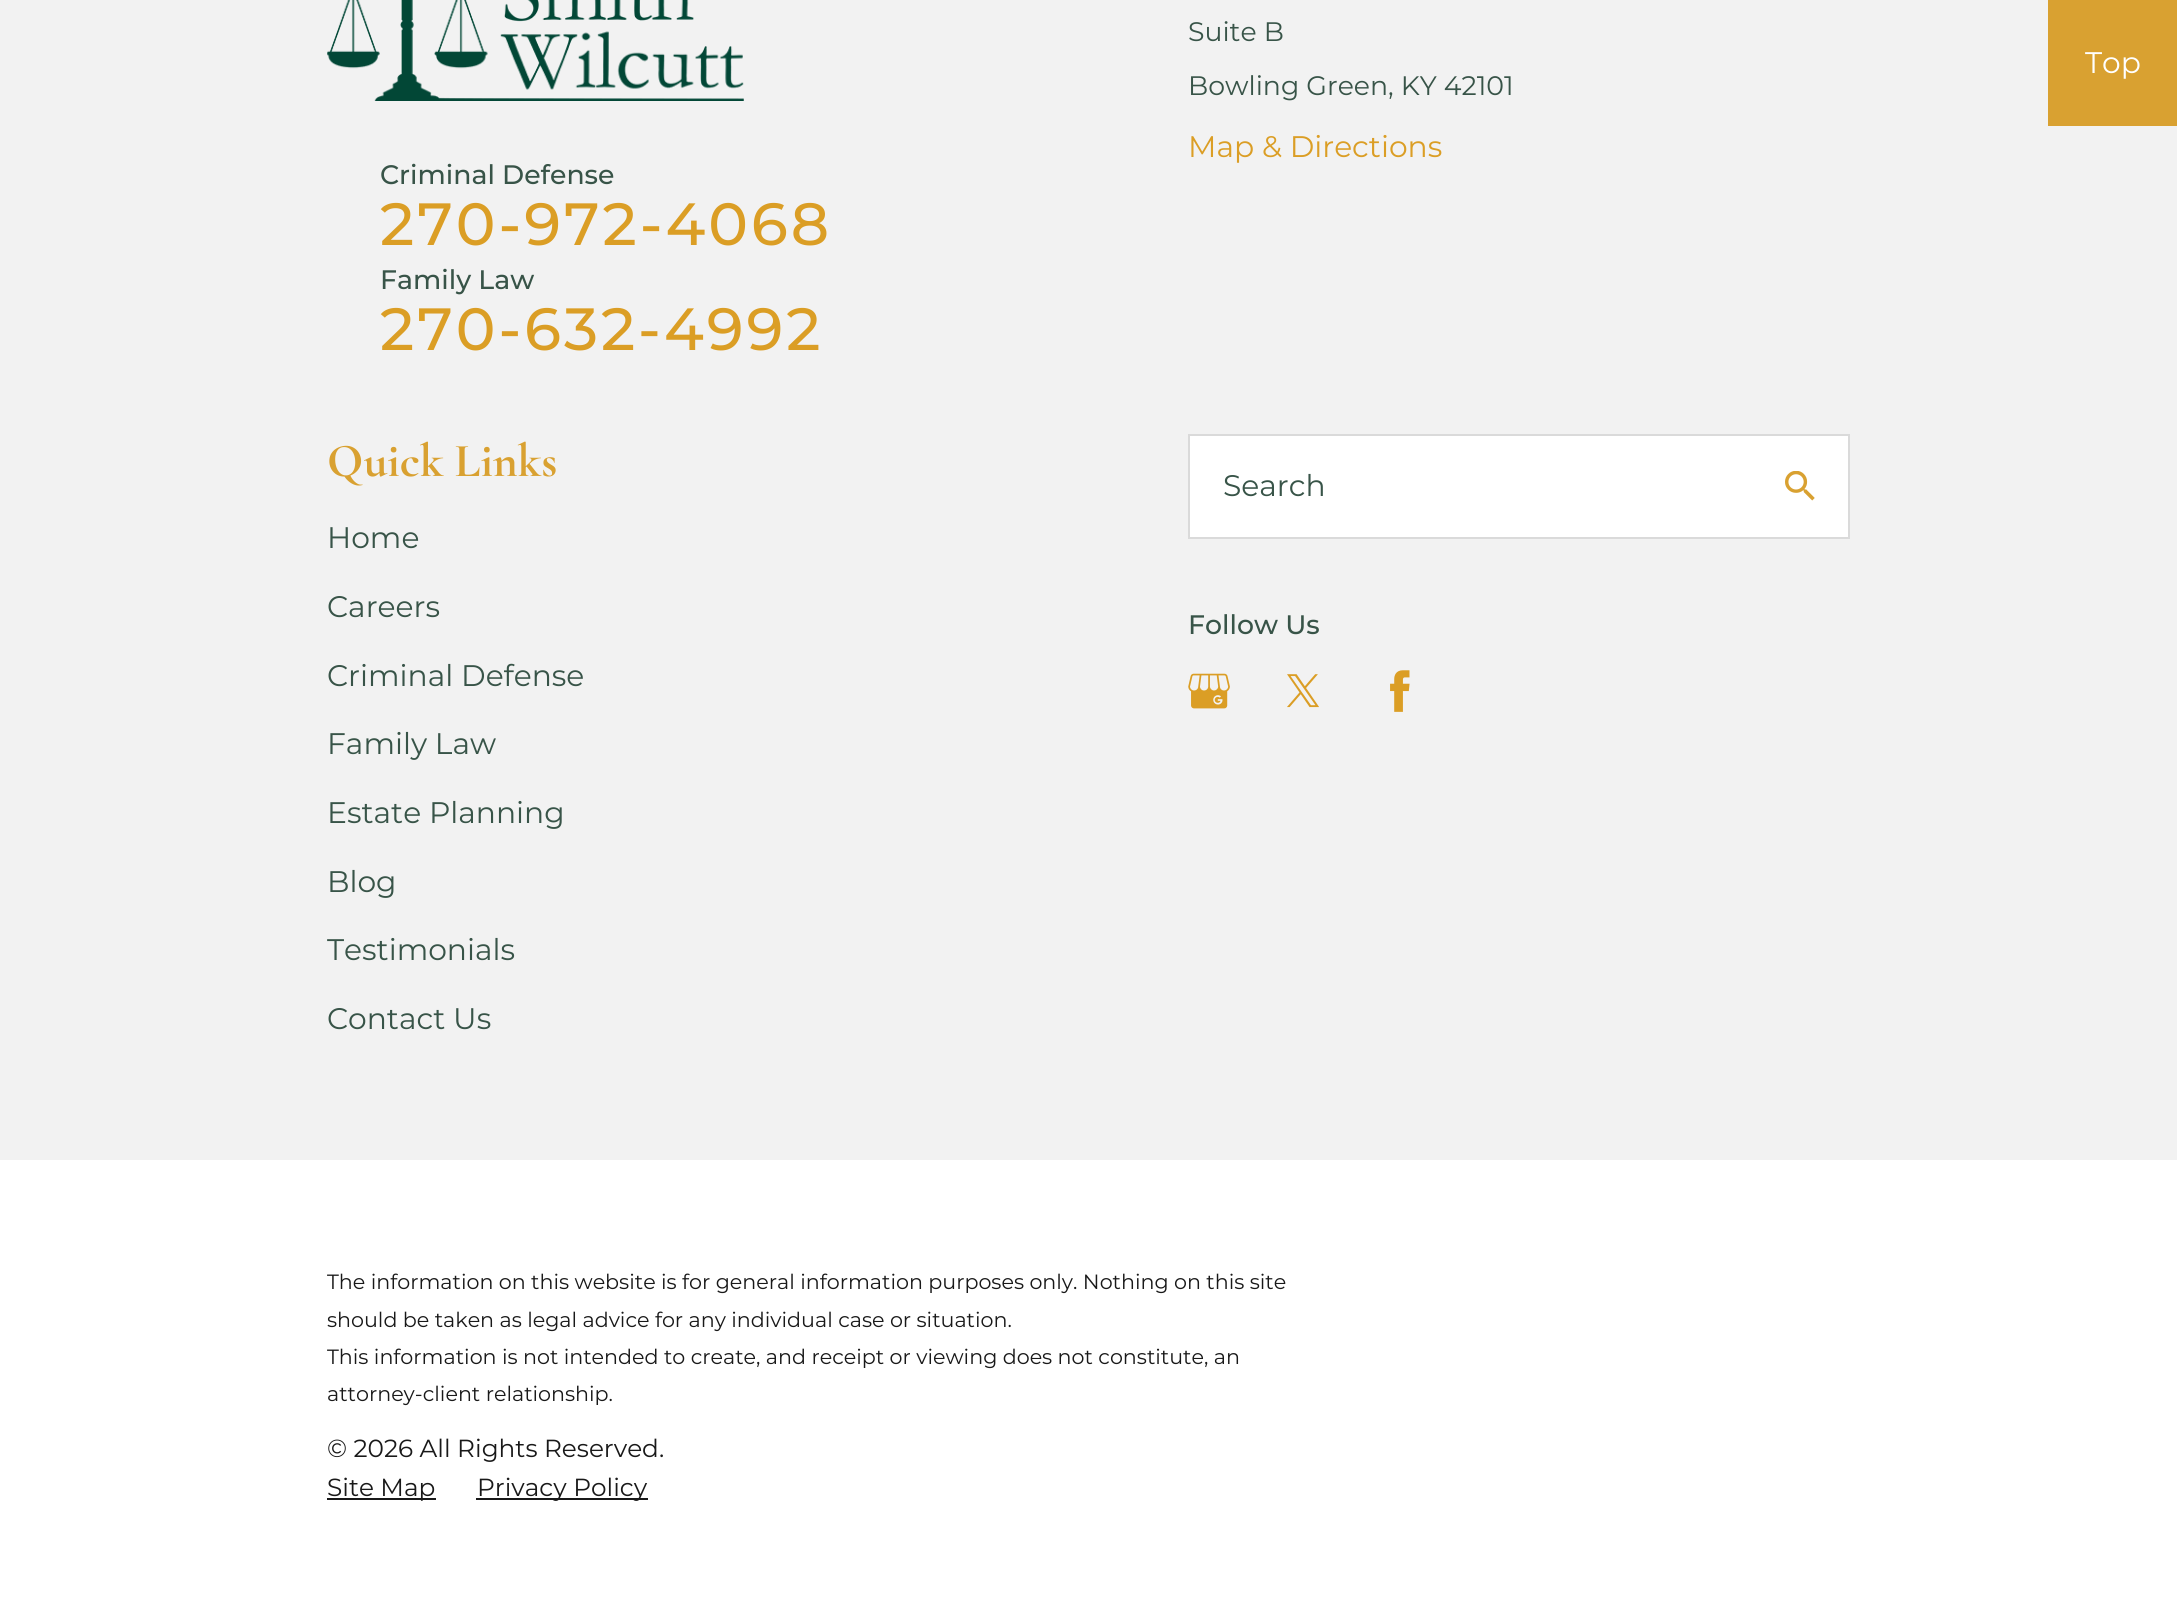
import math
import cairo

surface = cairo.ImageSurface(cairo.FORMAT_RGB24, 2177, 1610)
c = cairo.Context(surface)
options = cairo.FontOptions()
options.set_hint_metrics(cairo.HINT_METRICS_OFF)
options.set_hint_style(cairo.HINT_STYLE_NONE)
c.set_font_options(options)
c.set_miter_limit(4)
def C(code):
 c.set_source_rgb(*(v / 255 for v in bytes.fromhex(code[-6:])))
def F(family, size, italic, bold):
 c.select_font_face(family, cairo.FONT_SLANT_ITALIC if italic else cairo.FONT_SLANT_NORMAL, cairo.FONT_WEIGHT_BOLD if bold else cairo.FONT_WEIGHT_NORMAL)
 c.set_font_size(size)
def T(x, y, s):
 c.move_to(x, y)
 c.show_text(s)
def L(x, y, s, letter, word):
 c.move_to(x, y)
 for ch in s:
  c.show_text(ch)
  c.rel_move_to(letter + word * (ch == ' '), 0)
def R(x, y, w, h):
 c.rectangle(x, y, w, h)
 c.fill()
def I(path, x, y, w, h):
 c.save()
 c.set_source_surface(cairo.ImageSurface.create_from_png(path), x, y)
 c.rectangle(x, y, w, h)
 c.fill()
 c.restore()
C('ffffff')
c.paint()
C('f2f2f2')
R(0,0,2177,1160)
F('Montserrat',26.75,0,0)
C('385448')
T(1188,41,'Suite B')
T(1188,95,'Bowling Green, KY 42101')
F('Montserrat',29.75,0,0)
C('db9e25')
T(1188,157,'Map & Directions')
I('1.png',327,0,417,101)
F('Montserrat Medium',26.75,0,0)
C('385448')
T(380,184,'Criminal Defense')
F('Montserrat Medium',59.5,0,0)
C('db9e25')
L(380,245,'270-972-4068',3,0)
F('Montserrat Medium',26.75,0,0)
C('385448')
T(380,289,'Family Law')
F('Montserrat Medium',59.5,0,0)
C('db9e25')
L(380,350,'270-632-4992',3,0)
F('Cormorant Garamond',47.5,0,1)
C('d9a131')
T(327,476,'Quick Links')
F('Montserrat',29.75,0,0)
C('385448')
T(327,548,'Home')
T(327,617,'Careers')
T(327,686,'Criminal Defense')
T(327,754,'Family Law')
T(327,823,'Estate Planning')
T(327,892,'Blog')
T(327,960,'Testimonials')
T(327,1029,'Contact Us')
C('ffffff')
c.rectangle(1189,435,660,103)
c.fill_preserve()
C('dadada')
c.stroke()
C('385448')
T(1223,496,'Search')
I('2.png',1785,471,30,30)
F('Montserrat Medium',26.75,0,0)
T(1188,634,'Follow Us')
I('3.png',1188,673,42,36)
I('4.png',1287,674,32,34)
I('5.png',1390,670,20,42)
F('Montserrat',20.65,0,0)
C('191919')
T(327,1289,'The information on this website is for general information purposes only. Nothing on this site')
T(327,1327,'should be taken as legal advice for any individual case or situation.')
T(327,1364,'This information is not intended to create, and receipt or viewing does not constitute, an')
T(327,1401,'attorney-client relationship.')
F('Montserrat',24.75,0,0)
T(327,1457,'© 2026 All Rights Reserved.')
R(327,1498,109,2)
T(327,1496,'Site Map')
R(476,1498,172,2)
T(477,1496,'Privacy Policy')
C('d9a131')
R(2048,0,129,126)
F('Montserrat',29.75,0,0)
C('ffffff')
T(2085,73,'Top')
surface.write_to_png('o.png')
